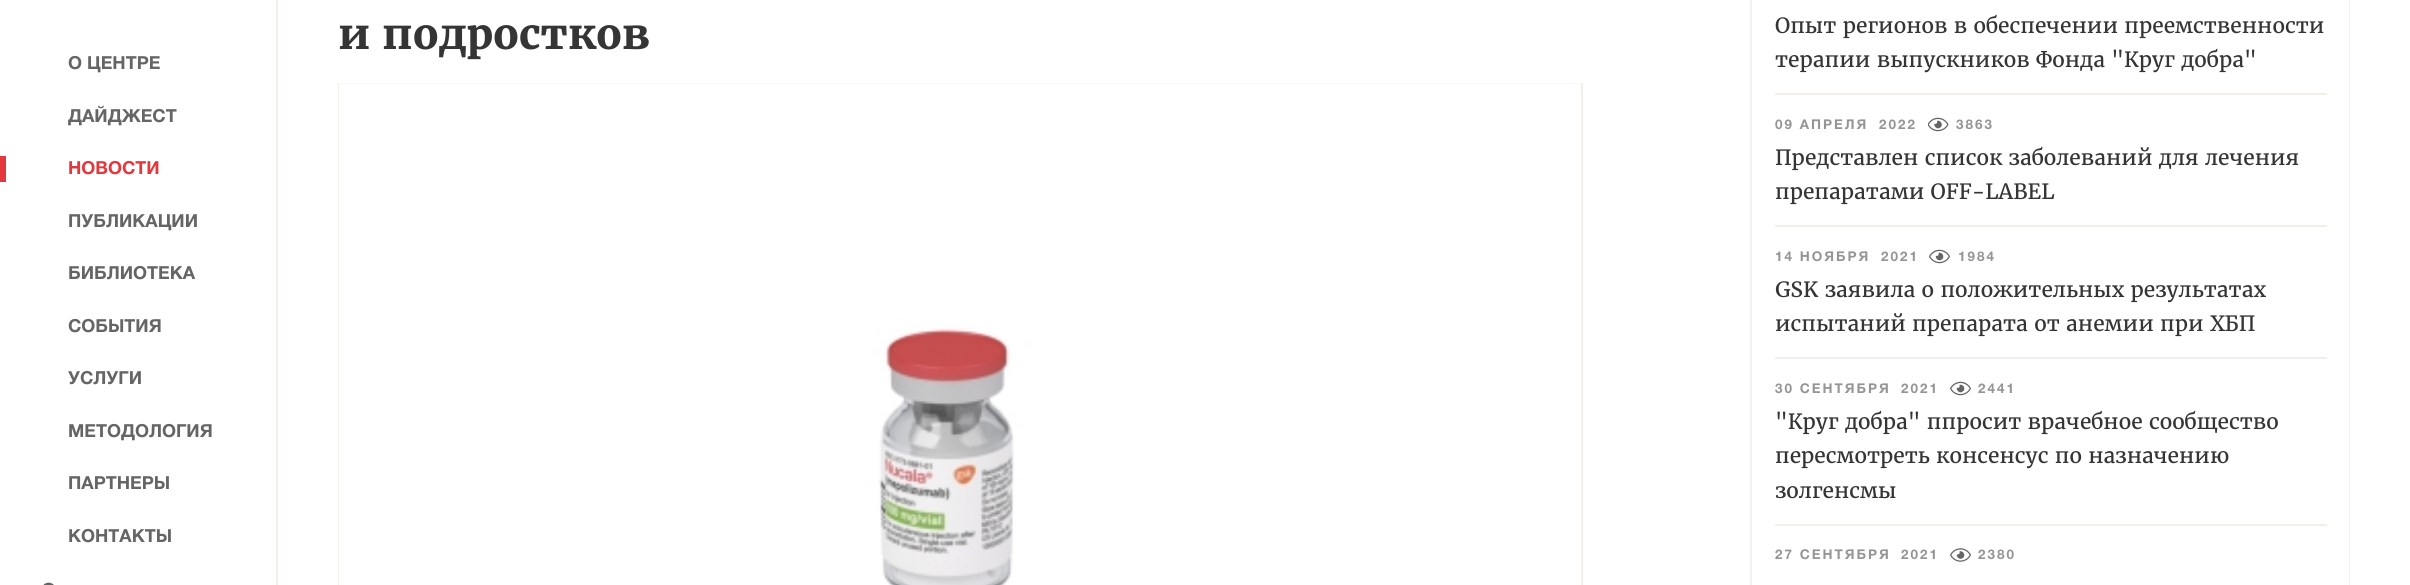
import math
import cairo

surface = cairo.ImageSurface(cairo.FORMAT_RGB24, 2410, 585)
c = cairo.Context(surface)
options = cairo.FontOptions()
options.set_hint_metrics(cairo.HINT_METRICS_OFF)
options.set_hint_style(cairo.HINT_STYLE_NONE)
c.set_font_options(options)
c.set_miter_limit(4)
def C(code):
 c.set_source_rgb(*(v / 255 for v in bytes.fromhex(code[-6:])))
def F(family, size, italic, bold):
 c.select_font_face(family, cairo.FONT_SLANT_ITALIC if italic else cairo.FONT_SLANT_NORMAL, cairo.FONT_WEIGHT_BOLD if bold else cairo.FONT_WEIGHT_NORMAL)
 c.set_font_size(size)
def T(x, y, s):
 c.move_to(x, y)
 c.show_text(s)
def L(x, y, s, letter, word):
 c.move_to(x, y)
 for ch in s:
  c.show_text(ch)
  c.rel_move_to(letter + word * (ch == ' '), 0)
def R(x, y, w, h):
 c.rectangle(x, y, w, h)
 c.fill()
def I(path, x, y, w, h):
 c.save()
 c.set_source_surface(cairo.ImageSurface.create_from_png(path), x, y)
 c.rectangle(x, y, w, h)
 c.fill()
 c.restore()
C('ffffff')
c.paint()
C('f2f0e9')
R(276,0,2,585)
F('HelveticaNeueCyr',18,0,1)
C('656565')
T(68,69,'О ЦЕНТРЕ')
T(68,122,'ДАЙДЖЕСТ')
C('e3383d')
R(0,156,6,26)
T(68,174,'НОВОСТИ')
C('656565')
T(68,227,'ПУБЛИКАЦИИ')
T(68,279,'БИБЛИОТЕКА')
T(68,332,'СОБЫТИЯ')
T(68,384,'УСЛУГИ')
T(68,437,'МЕТОДОЛОГИЯ')
T(68,489,'ПАРТНЕРЫ')
T(68,542,'КОНТАКТЫ')
I('1.png',43,582,11,3)
F('Merriweather',42,0,1)
C('353535')
T(338,49,'и подростков')
c.rectangle(339,84,1243,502)
C('f2f0e9')
c.stroke()
I('2.png',339,83,1242,502)
c.new_path()
c.move_to(2350,-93)
c.line_to(2350,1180)
c.line_to(2349,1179)
c.line_to(2349,-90)
c.close_path()
c.fill()
c.new_path()
c.move_to(1750,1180)
c.line_to(1750,-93)
c.line_to(1752,-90)
c.line_to(1752,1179)
c.close_path()
c.fill()
R(1775,93,552,2)
F('Merriweather',21,0,0)
C('353535')
T(1775,33,'Опыт регионов в обеспечении преемственности')
T(1775,67,'терапии выпускников Фонда "Круг добра"')
C('f2f0e9')
R(1775,225,552,2)
F('HelveticaNeueCyr',13.5,0,1)
C('959595')
L(1775,129,'09 АПРЕЛЯ',2,0)
L(1879,129,'2022',2,0)
I('3.png',1928,117,21,15)
L(1956,129,'3863',2,0)
F('Merriweather',21,0,0)
C('353535')
T(1775,165,'Представлен список заболеваний для лечения')
T(1775,199,'препаратами OFF-LABEL')
C('f2f0e9')
R(1775,357,552,2)
F('HelveticaNeueCyr',13.5,0,1)
C('959595')
L(1775,261,'14 НОЯБРЯ',2,0)
L(1881,261,'2021',2,0)
I('4.png',1929,249,21,15)
L(1958,261,'1984',2,0)
F('Merriweather',21,0,0)
C('353535')
T(1775,297,'GSK заявила о положительных результатах')
T(1775,331,'испытаний препарата от анемии при ХБП')
C('f2f0e9')
R(1775,524,552,2)
F('HelveticaNeueCyr',13.5,0,1)
C('959595')
L(1775,393,'30 СЕНТЯБРЯ',2,0)
L(1901,393,'2021',2,0)
I('4.png',1950,381,21,15)
L(1978,393,'2441',2,0)
F('Merriweather',21,0,0)
C('353535')
T(1775,429,'"Круг добра" ппросит врачебное сообщество')
T(1775,463,'пересмотреть консенсус по назначению')
T(1775,498,'золгенсмы')
F('HelveticaNeueCyr',13.5,0,1)
C('959595')
L(1775,559,'27 СЕНТЯБРЯ',2,0)
L(1901,559,'2021',2,0)
I('5.png',1950,548,21,14)
L(1978,559,'2380',2,0)
surface.write_to_png('o.png')
